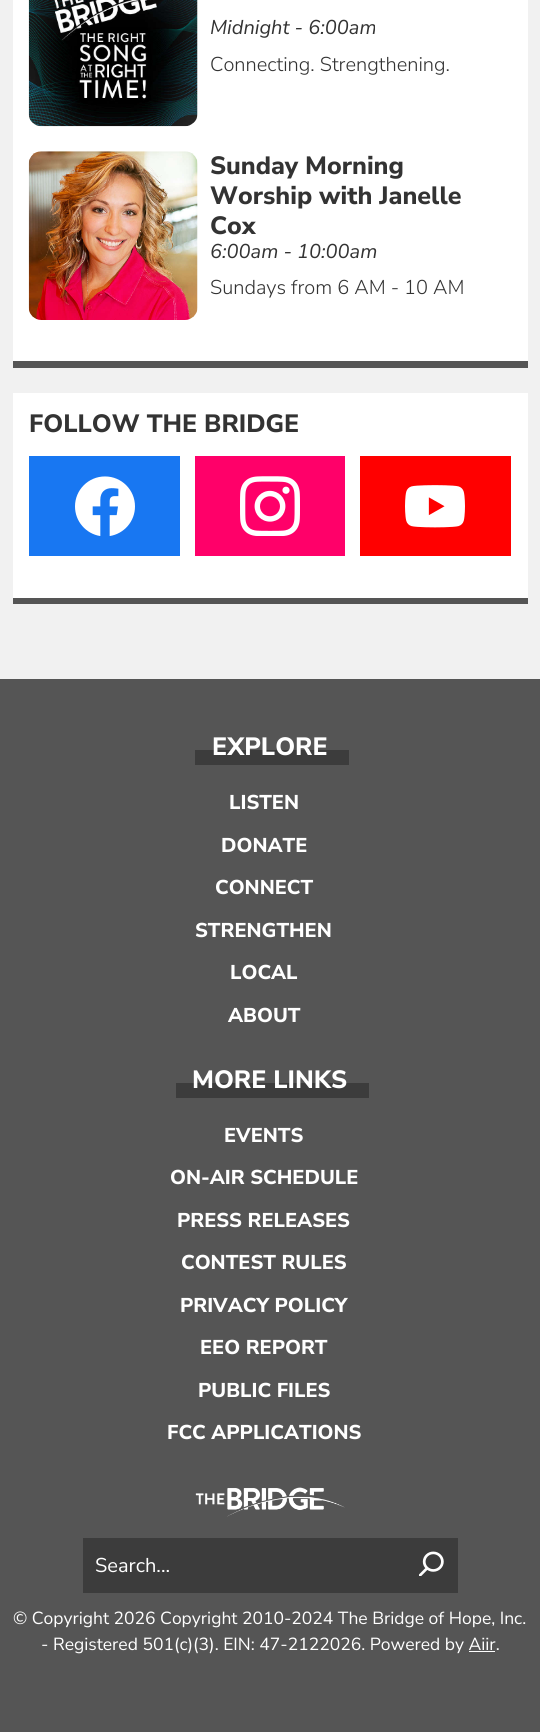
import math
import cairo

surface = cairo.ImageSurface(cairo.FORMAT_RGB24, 540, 1732)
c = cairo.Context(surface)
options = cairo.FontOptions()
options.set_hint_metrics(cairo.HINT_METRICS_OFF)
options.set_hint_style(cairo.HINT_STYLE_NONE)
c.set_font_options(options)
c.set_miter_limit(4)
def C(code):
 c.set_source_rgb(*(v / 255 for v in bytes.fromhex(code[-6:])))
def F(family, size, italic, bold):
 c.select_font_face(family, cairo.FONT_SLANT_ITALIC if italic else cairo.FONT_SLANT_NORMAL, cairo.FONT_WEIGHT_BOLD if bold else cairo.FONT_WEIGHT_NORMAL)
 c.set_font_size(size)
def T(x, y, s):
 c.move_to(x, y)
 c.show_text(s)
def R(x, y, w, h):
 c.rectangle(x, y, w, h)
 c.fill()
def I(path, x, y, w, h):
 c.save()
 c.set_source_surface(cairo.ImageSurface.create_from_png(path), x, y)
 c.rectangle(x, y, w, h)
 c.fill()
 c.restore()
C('f1f1f1')
c.paint()
C('ffffff')
R(13,0,515,361)
C('555555')
R(13,361,515,7)
I('1.png',28,0,170,127)
F('Nunito Sans ExtraLight',20,1,0)
C('333333')
T(210,34,'Midnight - 6:00am')
F('Nunito Sans Light',20,0,0)
T(210,71,'Connecting. Strengthening.')
I('2.png',28,151,170,169)
F('Nunito Sans ExtraBold',25,0,0)
T(210,174,'Sunday Morning')
T(210,204,'Worship with Janelle')
T(210,234,'Cox')
F('Nunito Sans ExtraLight',20,1,0)
T(210,258,'6:00am - 10:00am')
F('Nunito Sans Light',20,0,0)
T(210,294,'Sundays from 6 AM - 10 AM')
C('ffffff')
R(13,393,515,205)
C('555555')
R(13,598,515,6)
F('Nunito Sans ExtraBold',25,0,0)
C('333333')
T(29,432,'FOLLOW THE BRIDGE')
C('1877f2')
R(29,456,151,100)
I('3.png',75,476,60,60)
C('ff0069')
R(195,456,150,100)
I('4.png',240,476,60,60)
C('ff0000')
R(360,456,151,100)
I('5.png',405,485,60,43)
C('555555')
R(0,679,540,1053)
C('3c3c3c')
R(195,750,154,15)
C('ffffff')
T(212,755,'EXPLORE')
F('Nunito Sans ExtraBold',20,0,0)
T(229,809,'LISTEN')
T(221,852,'DONATE')
T(215,894,'CONNECT')
T(195,937,'STRENGTHEN')
T(230,979,'LOCAL')
T(228,1022,'ABOUT')
C('3c3c3c')
R(176,1083,193,15)
F('Nunito Sans ExtraBold',25,0,0)
C('ffffff')
T(192,1088,'MORE LINKS')
F('Nunito Sans ExtraBold',20,0,0)
T(224,1142,'EVENTS')
T(170,1184,'ON-AIR SCHEDULE')
T(177,1227,'PRESS RELEASES')
T(181,1269,'CONTEST RULES')
T(180,1312,'PRIVACY POLICY')
T(200,1354,'EEO REPORT')
T(198,1397,'PUBLIC FILES')
T(167,1439,'FCC APPLICATIONS')
I('6.png',195,1487,150,30)
C('3c3c3c')
R(83,1538,375,55)
F('Nunito Sans',20,0,0)
C('ffffff')
T(95,1572,'Search...')
I('7.png',419,1551,25,25)
F('Nunito Sans',17.5,0,0)
T(13,1624,'© Copyright 2026 Copyright 2010-2024 The Bridge of Hope, Inc.')
T(41,1650,'- Registered 501(c)(3). EIN: 47-2122026. Powered by Aiir.')
R(469,1651,26,1)
surface.write_to_png('o.png')
